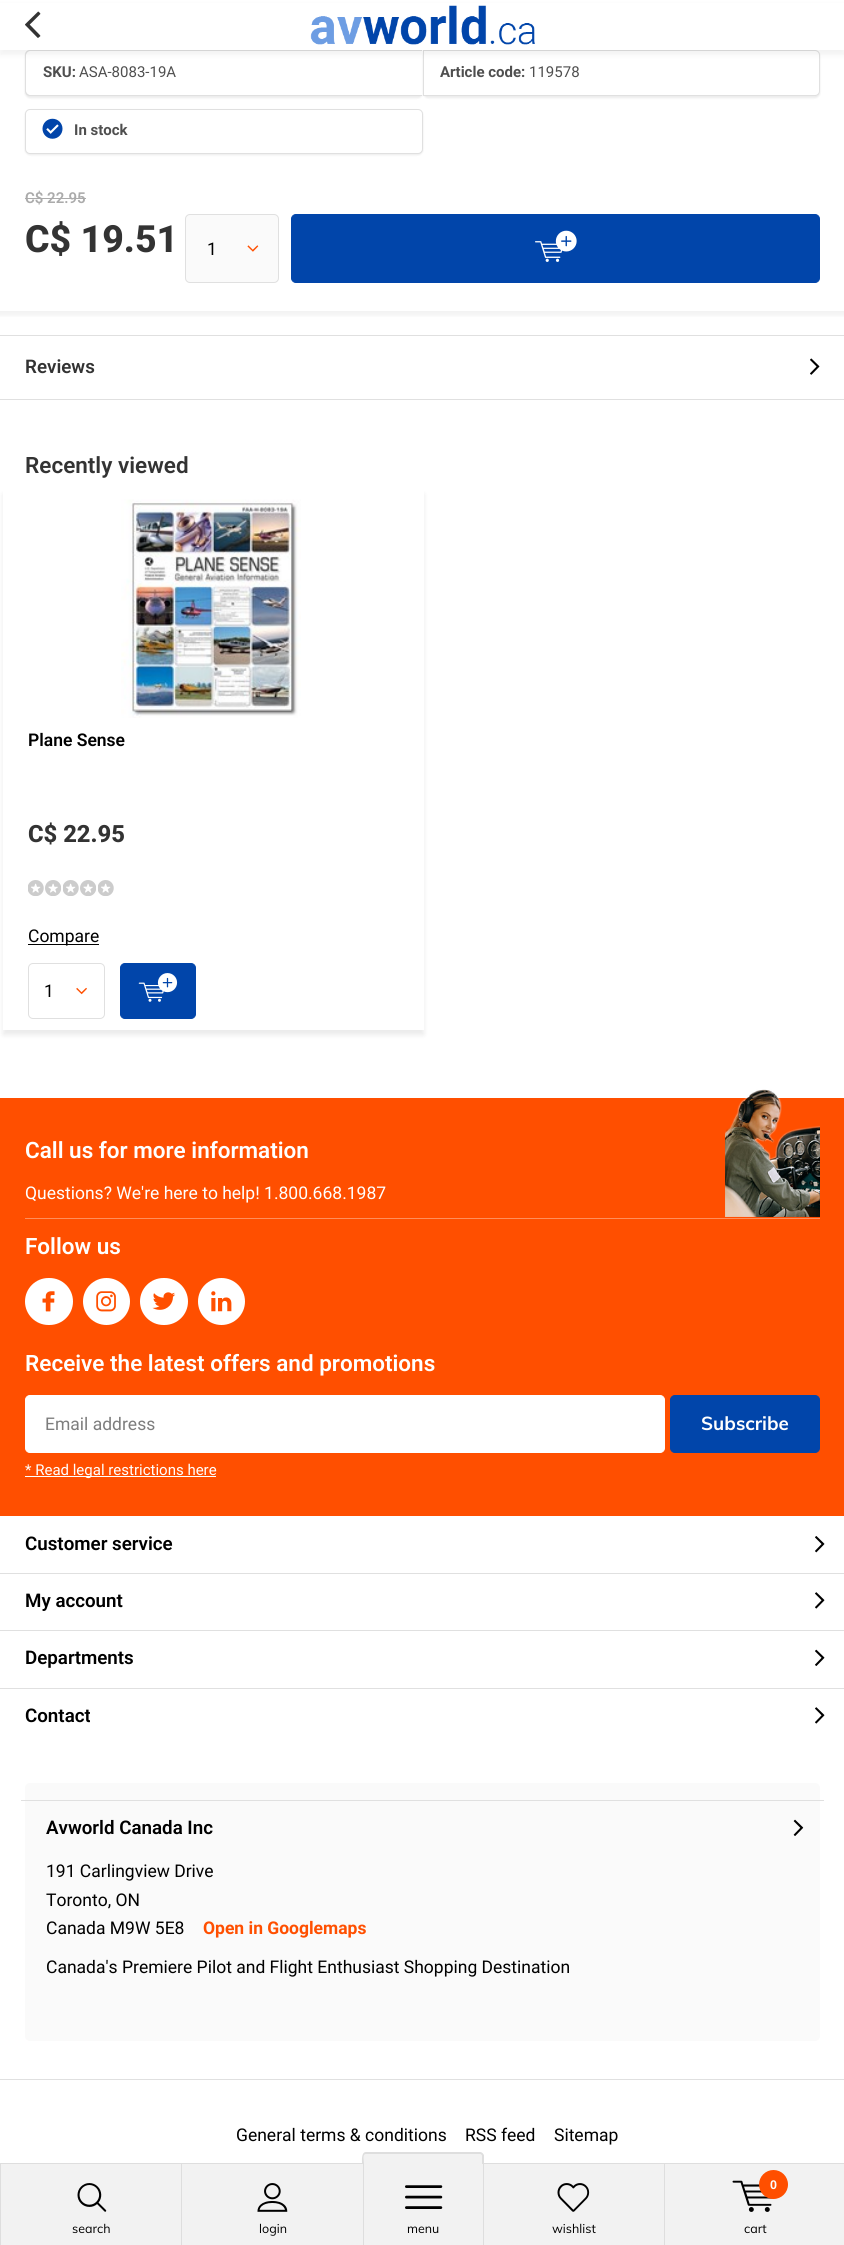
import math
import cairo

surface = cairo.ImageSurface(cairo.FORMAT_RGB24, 844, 2245)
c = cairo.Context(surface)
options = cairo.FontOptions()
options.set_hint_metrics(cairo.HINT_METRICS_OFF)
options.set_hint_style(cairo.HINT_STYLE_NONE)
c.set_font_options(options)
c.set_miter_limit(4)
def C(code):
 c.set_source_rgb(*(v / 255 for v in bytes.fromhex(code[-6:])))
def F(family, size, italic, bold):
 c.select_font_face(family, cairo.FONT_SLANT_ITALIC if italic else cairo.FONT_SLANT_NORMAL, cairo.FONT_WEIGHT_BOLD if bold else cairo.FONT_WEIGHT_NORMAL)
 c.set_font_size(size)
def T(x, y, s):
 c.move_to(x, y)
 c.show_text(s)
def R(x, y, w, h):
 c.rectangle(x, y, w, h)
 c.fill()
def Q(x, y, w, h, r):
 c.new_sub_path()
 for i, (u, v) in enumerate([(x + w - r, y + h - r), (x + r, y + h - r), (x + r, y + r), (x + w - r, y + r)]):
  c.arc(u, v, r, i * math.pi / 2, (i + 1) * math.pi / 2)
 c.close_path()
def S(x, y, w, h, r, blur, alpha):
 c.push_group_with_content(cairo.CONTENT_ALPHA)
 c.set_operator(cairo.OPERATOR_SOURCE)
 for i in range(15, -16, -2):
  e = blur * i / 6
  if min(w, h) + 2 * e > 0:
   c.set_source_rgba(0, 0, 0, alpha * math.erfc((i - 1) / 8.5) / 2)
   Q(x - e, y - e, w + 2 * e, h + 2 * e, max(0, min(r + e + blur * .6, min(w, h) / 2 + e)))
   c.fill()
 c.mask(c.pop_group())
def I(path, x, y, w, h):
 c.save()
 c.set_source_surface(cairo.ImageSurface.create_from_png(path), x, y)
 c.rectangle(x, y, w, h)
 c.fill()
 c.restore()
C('ffffff')
c.paint()
C('000000')
S(25,51,398,47,5,1,.08)
C('ffffff')
c.new_path()
c.move_to(30,51)
c.line_to(423,51)
c.line_to(423,95)
c.line_to(30,95)
c.curve_to(28,95,26,93,26,91)
c.line_to(26,55)
c.curve_to(26,53,28,51,30,51)
c.close_path()
c.fill()
C('e0e0e0')
c.set_fill_rule(cairo.FILL_RULE_EVEN_ODD)
c.new_path()
c.move_to(30,50)
c.line_to(422,50)
c.line_to(422,96)
c.line_to(30,96)
c.curve_to(27,96,25,94,25,91)
c.line_to(25,55)
c.curve_to(25,52,27,50,30,50)
c.close_path()
c.move_to(30,51)
c.line_to(422,51)
c.line_to(422,95)
c.line_to(30,95)
c.curve_to(28,95,26,93,26,91)
c.line_to(26,55)
c.curve_to(26,53,28,51,30,51)
c.close_path()
c.fill()
C('000000')
S(423,51,397,47,5,1,.08)
C('ffffff')
c.new_path()
c.move_to(423.5,50.5)
c.line_to(815,50.5)
c.curve_to(817.5,50.5,819.5,52.5,819.5,55)
c.line_to(819.5,91)
c.curve_to(819.5,93.5,817.5,95.5,815,95.5)
c.line_to(423.5,95.5)
c.close_path()
c.fill_preserve()
C('e0e0e0')
c.set_line_width(1)
c.stroke()
C('000000')
S(25,110,398,45,5,1,.08)
C('ffffff')
Q(25.5,109.5,397,44,4.5)
c.fill_preserve()
C('e0e0e0')
c.stroke()
c.save()
c.set_fill_rule(cairo.FILL_RULE_WINDING)
c.rectangle(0,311,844,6)
c.clip()
C('000000')
S(-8,55,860,261,0,2.5,.05)
c.restore()
F('Roboto',15,0,1)
C('4f4f4f')
T(43,77,'SKU:')
F('Roboto',15,0,0)
T(79,77,'ASA-8083-19A')
F('Roboto',15,0,1)
T(440,77,'Article code:')
F('Roboto',15,0,0)
T(529,77,'119578')
I('1.png',42,118,21,21)
F('Roboto',15,0,1)
T(74,135,'In stock')
F('Roboto SemiBold',15,0,0)
C('ababab')
T(25,203,'C$ 22.95')
R(25,198,61,1)
F('Roboto ExtraBold',37.5,0,0)
C('333333')
T(25,252,'C$ 19.51')
C('fafafa')
Q(185,214,94,69,5)
c.fill()
I('2.png',247,245,12,7)
Q(185.5,214.5,93,68,4.5)
C('e0e0e0')
c.stroke()
F('Roboto',17.5,0,0)
C('000000')
T(207,255,'1')
C('0145aa')
Q(291.5,214.5,528,68,4.5)
c.fill_preserve()
c.stroke()
I('3.png',535,230,42,32)
C('e0e0e0')
R(0,335,844,1)
R(0,399,844,1)
F('Roboto SemiBold',18.75,0,0)
C('333333')
T(25,373,'Reviews')
I('4.png',810,358,10,17)
F('Roboto SemiBold',22.5,0,0)
T(25,473,'Recently viewed')
c.save()
c.new_path()
c.move_to(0,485)
c.line_to(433,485)
c.line_to(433,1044)
c.line_to(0,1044)
c.close_path()
c.move_to(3,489)
c.line_to(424,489)
c.line_to(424,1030)
c.line_to(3,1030)
c.close_path()
c.clip()
C('000000')
S(3,494,421,541,0,2.5,.08)
c.restore()
I('5.png',121,499,180,219)
F('Roboto SemiBold',17.5,0,0)
C('000000')
T(28,746,'Plane Sense')
F('Roboto ExtraBold',23.75,0,0)
C('333333')
T(28,842,'C$ 22.95')
I('6.png',28,880,16,16)
I('7.png',45,880,16,16)
I('6.png',63,880,16,16)
I('7.png',80,880,16,16)
I('6.png',98,880,16,16)
C('000000')
R(28,944,71,1)
F('Roboto',17.5,0,0)
T(28,942,'Compare')
I('8.png',76,987,11,8)
Q(28.5,963.5,76,55,4.5)
C('e0e0e0')
c.stroke()
C('000000')
T(44,997,'1')
C('0145aa')
Q(120.5,963.5,75,55,4.5)
c.fill_preserve()
c.stroke()
I('9.png',138,973,40,29)
C('ff4f00')
R(0,1098,844,418)
C('ff8e5c')
R(25,1218,795,1)
F('Roboto SemiBold',22.5,0,0)
C('ffffff')
T(25,1158,'Call us for more information')
I('10.png',725,1089,95,128)
F('Roboto',17.5,0,0)
T(25,1199,'Questions? We\'re here to help! 1.800.668.1987')
F('Roboto SemiBold',22.5,0,0)
T(25,1254,'Follow us')
Q(25,1278,48,47,23.5)
c.fill()
I('11.png',42,1291,13,21)
c.arc(106.5,1301.5,23.5,0,2 * math.pi)
c.fill()
I('12.png',96,1291,20,21)
Q(140,1278,48,47,23.5)
c.fill()
I('13.png',152,1292,24,18)
c.arc(221.5,1301.5,23.5,0,2 * math.pi)
c.fill()
I('14.png',211,1291,21,21)
T(25,1371,'Receive the latest offers and promotions')
Q(25.5,1395.5,639,57,4.5)
c.fill_preserve()
c.stroke()
F('Roboto',17.5,0,0)
C('7d7d7d')
T(45,1430,'Email address')
C('0145aa')
Q(670.5,1395.5,149,57,4.5)
c.fill_preserve()
c.stroke()
F('Muli',18.75,0,1)
C('ffffff')
T(701,1430,'Subscribe')
R(25,1476,191,1)
F('Roboto',15,0,0)
T(25,1475,'* Read legal restrictions here')
C('e0e0e0')
R(0,2079,844,1)
F('Roboto SemiBold',18.75,0,0)
C('000000')
T(25,1550,'Customer service')
I('15.png',815,1536,10,17)
C('e0e0e0')
R(0,1573,844,1)
C('000000')
T(25,1607,'My account')
I('16.png',815,1592,10,17)
C('e0e0e0')
R(0,1630,844,1)
C('000000')
T(25,1664,'Departments')
I('17.png',815,1649,10,17)
C('e0e0e0')
R(0,1688,844,1)
C('000000')
T(25,1722,'Contact')
I('16.png',815,1707,10,17)
C('fafafa')
Q(25,1783,795,258,5)
c.fill()
C('e0e0e0')
R(21,1800,803,1)
C('000000')
T(46,1834,'Avworld Canada Inc')
I('18.png',793,1819,11,17)
F('Roboto',17.5,0,0)
T(46,1877,'191 Carlingview Drive')
T(46,1906,'Toronto, ON')
T(46,1934,'Canada M9W 5E8')
F('Roboto',17.5,0,1)
C('ff4f00')
T(203,1934,'Open in Googlemaps')
F('Roboto',17.5,0,0)
C('000000')
T(46,1973,'Canada\'s Premiere Pilot and Flight Enthusiast Shopping Destination')
T(236,2141,'General terms & conditions')
T(465,2141,'RSS feed')
T(554,2141,'Sitemap')
C('000000')
S(0,5,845,50,0,2.5,.05)
C('ffffff')
R(0,3,844,47)
I('19.png',25,11,16,27)
I('20.png',310,5,225,40)
C('f2f2f2')
R(1,2164,843,81)
C('dedede')
R(0,2163,363,1)
R(0,2163,1,82)
I('21.png',77,2183,30,29)
F('Muli',12.5,0,0)
C('000000')
T(72,2233,'search')
C('dedede')
R(181,2163,1,82)
I('22.png',257,2183,31,29)
C('000000')
T(259,2233,'login')
C('dedede')
R(363,2163,1,82)
R(483,2163,361,1)
R(483,2163,1,82)
C('f2f2f2')
c.new_path()
c.move_to(367,2153)
c.line_to(480,2153)
c.curve_to(482,2153,484,2155,484,2157)
c.line_to(484,2164)
c.line_to(363,2164)
c.line_to(363,2157)
c.curve_to(363,2155,365,2153,367,2153)
c.close_path()
c.fill()
C('dedede')
c.new_path()
c.move_to(366,2152)
c.line_to(480,2152)
c.curve_to(482,2152,484,2154,484,2156)
c.line_to(484,2164)
c.line_to(362,2164)
c.curve_to(362,2161,361,2152,366,2152)
c.close_path()
c.move_to(366,2154)
c.line_to(480,2154)
c.curve_to(481,2154,482,2155,482,2156)
c.line_to(482,2164)
c.line_to(364,2164)
c.curve_to(364,2161,362,2154,366,2154)
c.close_path()
c.fill()
I('23.png',405,2185,38,24)
C('000000')
T(407,2233,'menu')
I('24.png',557,2183,33,29)
T(552,2233,'wishlist')
C('dedede')
R(664,2163,1,82)
I('25.png',732,2180,41,32)
C('ff4f00')
c.arc(773.5,2184.5,14.5,0,2 * math.pi)
c.fill()
F('Liberation Sans',12.5,0,1)
C('ffffff')
T(770,2189,'0')
F('Muli',12.5,0,0)
C('000000')
T(744,2233,'cart')
surface.write_to_png('o.png')
